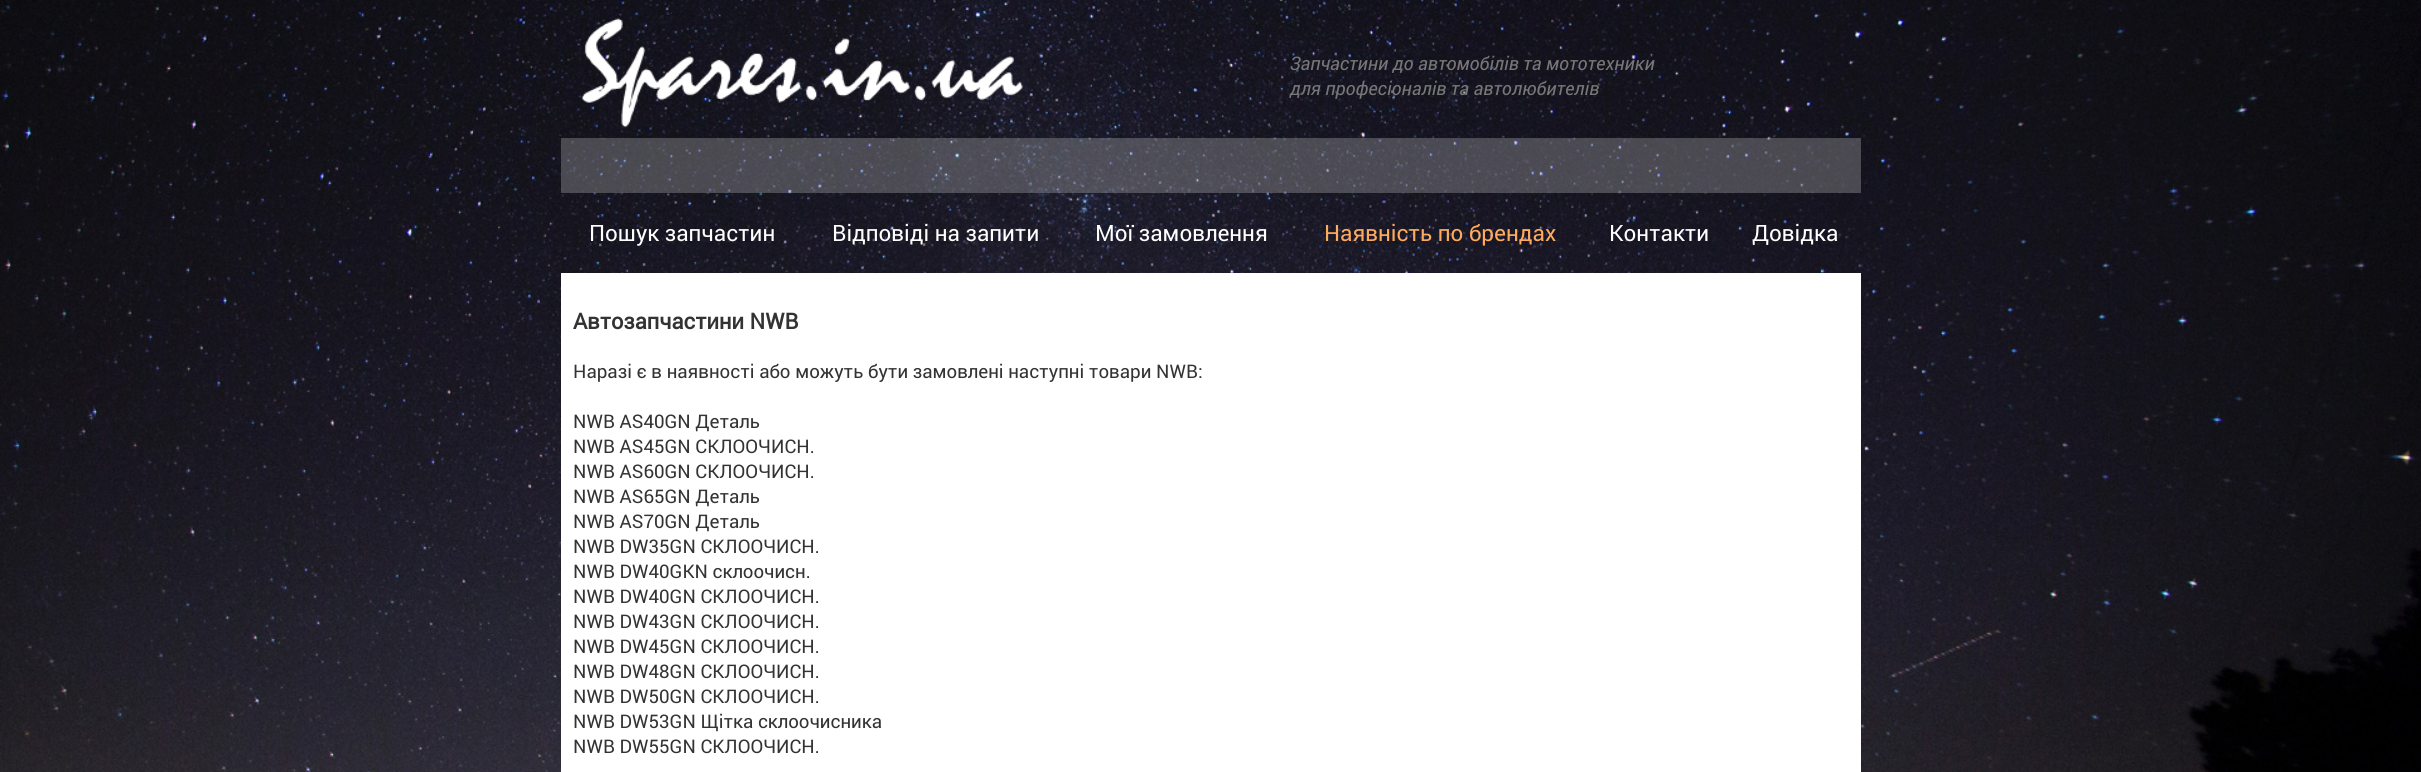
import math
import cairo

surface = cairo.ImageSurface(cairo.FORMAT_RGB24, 2421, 772)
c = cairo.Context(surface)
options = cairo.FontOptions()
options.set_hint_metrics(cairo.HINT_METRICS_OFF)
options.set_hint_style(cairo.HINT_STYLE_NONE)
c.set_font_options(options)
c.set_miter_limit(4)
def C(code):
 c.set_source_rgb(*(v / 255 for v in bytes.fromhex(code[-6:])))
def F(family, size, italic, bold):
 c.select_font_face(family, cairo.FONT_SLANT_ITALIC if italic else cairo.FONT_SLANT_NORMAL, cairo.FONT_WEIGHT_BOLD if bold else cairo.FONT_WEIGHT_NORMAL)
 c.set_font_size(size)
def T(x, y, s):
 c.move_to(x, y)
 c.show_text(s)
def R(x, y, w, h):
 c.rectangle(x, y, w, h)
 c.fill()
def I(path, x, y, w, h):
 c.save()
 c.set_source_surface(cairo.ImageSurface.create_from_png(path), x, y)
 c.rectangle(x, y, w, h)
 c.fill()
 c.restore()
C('ffffff')
c.paint()
I('1.png',0,0,2421,772)
I('2.png',581,18,442,110)
F('Roboto',18.75,1,0)
C('777777')
T(1290,70,'Запчастини до автомобілів та мототехники')
T(1290,95,'для професіоналів та автолюбителів')
c.set_source_rgba(0.784,0.784,0.784,0.3)
R(561,138,1300,55)
F('Roboto',22.5,0,0)
C('ffffff')
T(589,241,'Пошук запчастин')
T(832,241,'Відповіді на запити')
T(1095,241,'Мої замовлення')
C('ffab5f')
T(1324,241,'Наявність по брендах')
C('ffffff')
T(1609,241,'Контакти')
T(1752,241,'Довідка')
R(561,273,1300,499)
F('Roboto',22,0,1)
C('333333')
T(573,329,'Автозапчастини NWB')
F('Roboto',18.75,0,0)
T(573,378,'Наразі є в наявності або можуть бути замовлені наступні товари NWB:')
T(573,428,'NWB AS40GN Деталь')
T(573,453,'NWB AS45GN СКЛООЧИСН.')
T(573,478,'NWB AS60GN СКЛООЧИСН.')
T(573,503,'NWB AS65GN Деталь')
T(573,528,'NWB AS70GN Деталь')
T(573,553,'NWB DW35GN СКЛООЧИСН.')
T(573,578,'NWB DW40GKN склоочисн.')
T(573,603,'NWB DW40GN СКЛООЧИСН.')
T(573,628,'NWB DW43GN СКЛООЧИСН.')
T(573,653,'NWB DW45GN СКЛООЧИСН.')
T(573,678,'NWB DW48GN СКЛООЧИСН.')
T(573,703,'NWB DW50GN СКЛООЧИСН.')
T(573,728,'NWB DW53GN Щітка склоочисника')
T(573,753,'NWB DW55GN СКЛООЧИСН.')
surface.write_to_png('o.png')
